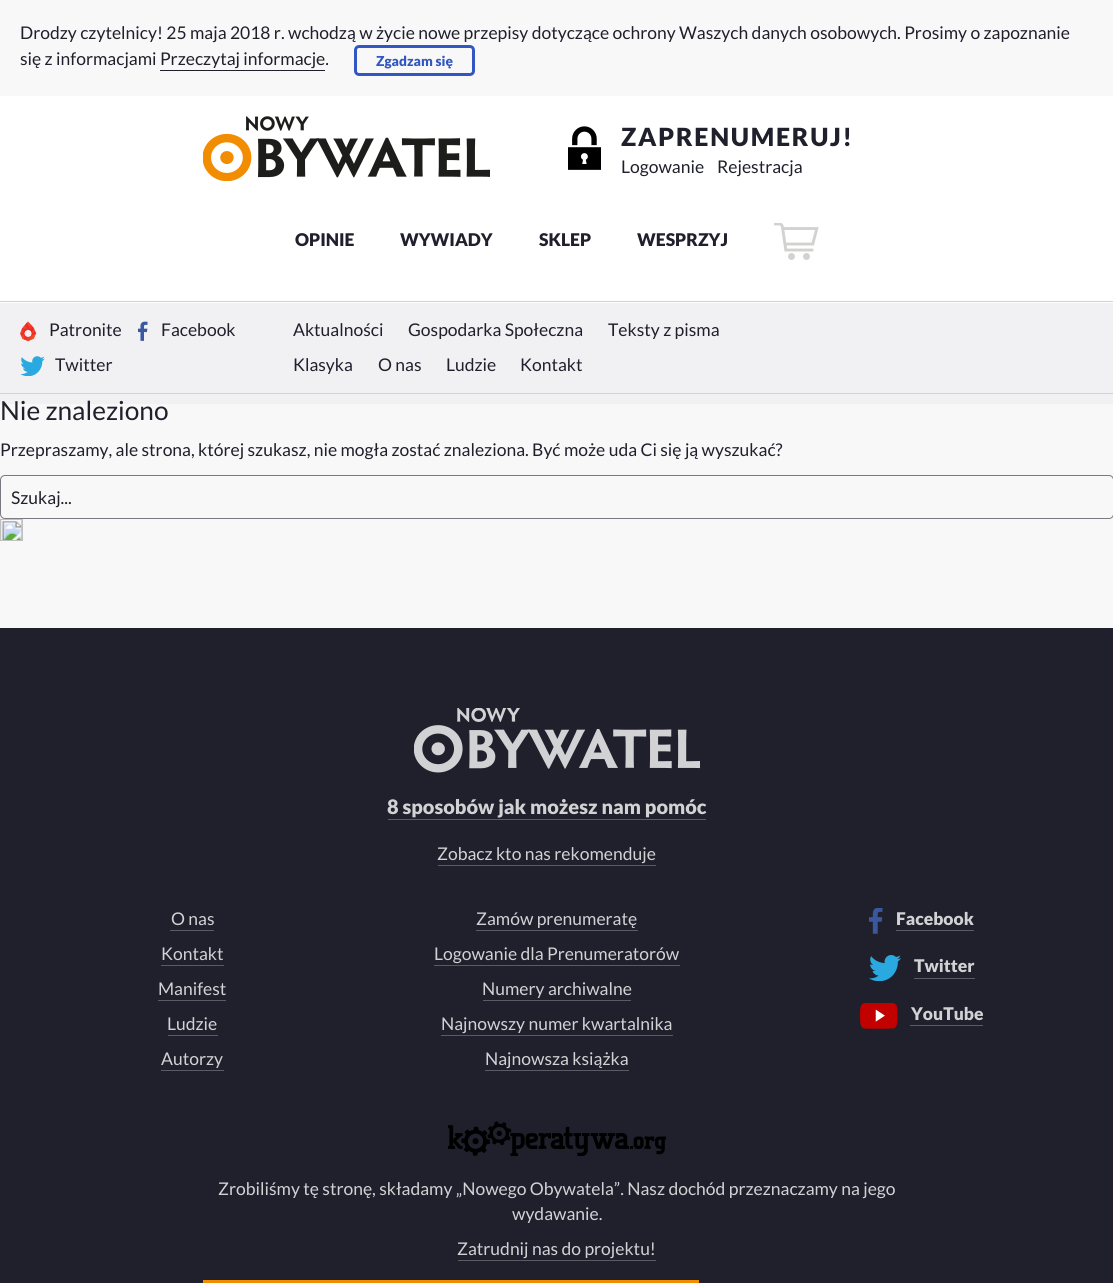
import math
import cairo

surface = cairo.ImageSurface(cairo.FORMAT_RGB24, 1113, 1283)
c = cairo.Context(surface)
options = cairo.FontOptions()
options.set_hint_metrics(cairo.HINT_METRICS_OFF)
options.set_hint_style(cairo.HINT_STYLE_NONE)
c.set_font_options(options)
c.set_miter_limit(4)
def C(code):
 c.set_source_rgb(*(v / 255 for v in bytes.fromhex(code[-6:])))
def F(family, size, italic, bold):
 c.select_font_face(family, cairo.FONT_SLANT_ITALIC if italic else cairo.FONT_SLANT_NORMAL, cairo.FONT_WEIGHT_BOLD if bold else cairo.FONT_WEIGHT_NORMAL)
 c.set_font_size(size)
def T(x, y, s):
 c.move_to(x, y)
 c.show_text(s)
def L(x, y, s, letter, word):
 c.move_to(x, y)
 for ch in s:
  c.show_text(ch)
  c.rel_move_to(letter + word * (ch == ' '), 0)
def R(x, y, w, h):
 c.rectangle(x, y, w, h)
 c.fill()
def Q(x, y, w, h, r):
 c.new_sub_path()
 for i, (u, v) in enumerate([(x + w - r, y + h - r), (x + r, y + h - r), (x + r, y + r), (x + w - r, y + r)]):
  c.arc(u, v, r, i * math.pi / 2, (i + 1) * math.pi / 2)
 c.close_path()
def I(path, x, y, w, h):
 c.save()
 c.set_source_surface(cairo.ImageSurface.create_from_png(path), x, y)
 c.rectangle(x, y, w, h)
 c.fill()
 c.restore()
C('f8f8f9')
c.paint()
F('Lato',17.5,0,0)
C('20202d')
T(20,39,'Drodzy czytelnicy! 25 maja 2018 r. wchodzą w życie nowe przepisy dotyczące ochrony Waszych danych osobowych. Prosimy o zapoznanie')
T(20,65,'się z informacjami Przeczytaj informacje.')
Q(355.5,46.5,118,28,3.5)
C('3057c2')
c.set_line_width(3)
c.stroke()
F('Lato Black',13.75,0,0)
T(376,66,'Zgadzam się')
C('20202d')
R(160,70,165,1)
C('ffffff')
R(0,96,1113,207)
C('d2d2d5')
R(0,301,1113,1)
I('1.png',203,116,287,65)
I('2.png',568,126,33,44)
F('Lato Black',25,0,0)
C('20202d')
L(621,146,'ZAPRENUMERUJ!',1.75,0)
F('Lato',17.5,0,0)
T(621,173,'Logowanie')
T(717,173,'Rejestracja')
F('Lato Black',17.5,0,0)
T(295,246,'OPINIE')
T(400,246,'WYWIADY')
T(539,246,'SKLEP')
T(637,246,'WESPRZYJ')
I('3.png',774,223,45,37)
C('f1f1f3')
c.new_path()
c.move_to(0,394)
c.line_to(0,404)
c.line_to(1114,404)
c.line_to(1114,313)
c.line_to(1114,394)
c.close_path()
c.fill()
R(0,303,1113,90)
C('d2d2d5')
R(0,393,1113,1)
I('4.png',20,321,17,21)
F('Lato',17.5,0,0)
C('20202d')
T(49,336,'Patronite')
I('5.png',138,321,10,20)
T(161,336,'Facebook')
I('6.png',20,356,25,20)
T(55,371,'Twitter')
T(293,336,'Aktualności')
T(408,336,'Gospodarka Społeczna')
T(608,336,'Teksty z pisma')
T(293,371,'Klasyka')
T(378,371,'O nas')
T(446,371,'Ludzie')
T(520,371,'Kontakt')
F('Lato',26.25,0,0)
T(0,420,'Nie znaleziono')
F('Lato',17.5,0,0)
T(0,456,'Przepraszamy, ale strona, której szukasz, nie mogła zostać znaleziona. Być może uda Ci się ją wyszukać?')
Q(.5,475.5,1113,43,4.5)
C('797981')
c.set_line_width(1)
c.stroke()
C('20202d')
T(11,504,'Szukaj...')
I('7.png',0,518,22,22)
c.rectangle(.5,519.5,22,21)
C('c0c0c0')
c.stroke()
C('20202d')
R(0,628,1113,655)
I('8.png',414,708,286,65)
F('Lato Black',20,0,0)
C('d2d2d5')
T(387,814,'8 sposobów jak możesz nam pomóc')
C('5b5b65')
R(388,819,318,1)
F('Lato',17.5,0,0)
C('d2d2d5')
T(437,860,'Zobacz kto nas rekomenduje')
C('5b5b65')
R(438,865,218,1)
C('d2d2d5')
T(171,925,'O nas')
C('5b5b65')
R(170,930,44,1)
C('d2d2d5')
T(161,960,'Kontakt')
C('5b5b65')
R(161,965,63,1)
C('d2d2d5')
T(158,995,'Manifest')
C('5b5b65')
R(158,1000,68,1)
C('d2d2d5')
T(167,1030,'Ludzie')
C('5b5b65')
R(168,1035,50,1)
C('d2d2d5')
T(161,1065,'Autorzy')
C('5b5b65')
R(161,1070,63,1)
C('d2d2d5')
T(476,925,'Zamów prenumeratę')
C('5b5b65')
R(476,930,162,1)
C('d2d2d5')
T(434,960,'Logowanie dla Prenumeratorów')
C('5b5b65')
R(434,965,246,1)
C('d2d2d5')
T(482,995,'Numery archiwalne')
C('5b5b65')
R(483,1000,148,1)
C('d2d2d5')
T(441,1030,'Najnowszy numer kwartalnika')
C('5b5b65')
R(441,1035,232,1)
C('d2d2d5')
T(485,1065,'Najnowsza książka')
C('5b5b65')
R(485,1070,144,1)
I('9.png',869,908,14,26)
F('Lato Black',17.5,0,0)
C('d2d2d5')
T(896,925,'Facebook')
C('5b5b65')
R(896,930,78,1)
I('10.png',869,955,32,26)
C('d2d2d5')
T(914,972,'Twitter')
C('5b5b65')
R(914,978,61,1)
I('11.png',860,1003,38,26)
C('d2d2d5')
T(911,1020,'YouTube')
C('5b5b65')
R(910,1025,73,1)
I('12.png',448,1121,218,35)
F('Lato',17.5,0,0)
C('d2d2d5')
T(218,1195,'Zrobiliśmy tę stronę, składamy „Nowego Obywatela”. Nasz dochód przeznaczamy na jego')
T(512,1220,'wydawanie.')
T(457,1255,'Zatrudnij nas do projektu!')
C('5b5b65')
R(458,1260,198,1)
C('f28c00')
R(203,1280,496,3)
surface.write_to_png('o.png')
